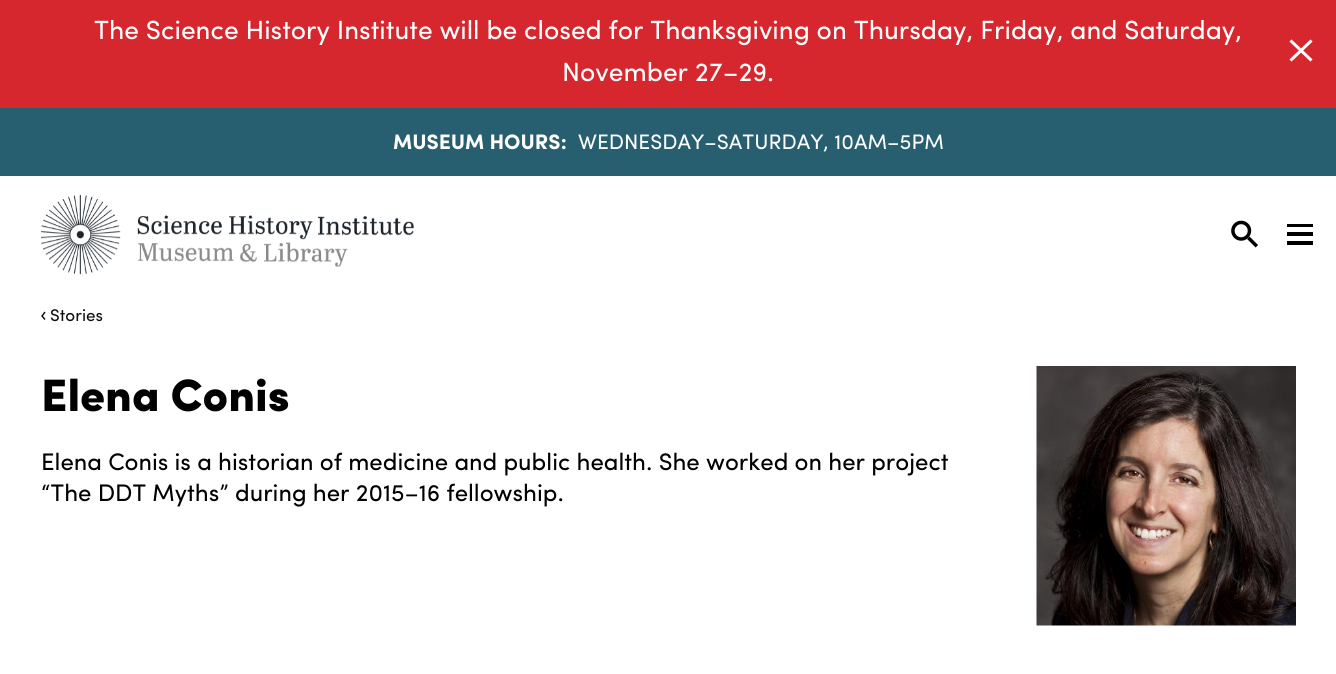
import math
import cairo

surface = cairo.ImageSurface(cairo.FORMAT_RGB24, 1336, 674)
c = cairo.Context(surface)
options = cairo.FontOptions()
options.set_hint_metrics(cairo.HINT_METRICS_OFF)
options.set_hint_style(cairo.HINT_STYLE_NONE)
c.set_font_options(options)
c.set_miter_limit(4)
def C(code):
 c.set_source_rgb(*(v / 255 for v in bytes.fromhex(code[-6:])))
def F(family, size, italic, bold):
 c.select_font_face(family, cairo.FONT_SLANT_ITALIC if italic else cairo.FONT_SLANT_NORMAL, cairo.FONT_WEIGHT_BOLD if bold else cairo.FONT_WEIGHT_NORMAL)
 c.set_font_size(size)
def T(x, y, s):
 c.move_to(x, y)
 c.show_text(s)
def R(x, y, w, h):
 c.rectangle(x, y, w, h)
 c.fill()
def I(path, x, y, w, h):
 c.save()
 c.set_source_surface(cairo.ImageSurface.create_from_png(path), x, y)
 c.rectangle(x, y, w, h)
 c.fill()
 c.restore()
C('ffffff')
c.paint()
C('d7272e')
R(0,0,1336,108)
F('Sofia',26.4,0,0)
C('ffffff')
T(94,39,'The Science History Institute will be closed for Thanksgiving on Thursday, Friday, and Saturday,')
T(562,81,'November 27–29.')
c.new_path()
c.move_to(1290.5,40.5)
c.line_to(1311.5,60.5)
c.move_to(1311.5,40.5)
c.line_to(1290.5,60.5)
c.set_line_width(3)
c.stroke()
C('285f70')
R(0,108,1336,68)
F('Sofia',21,0,1)
C('ffffff')
T(393,149,'MUSEUM HOURS:')
F('Sofia',21,0,0)
T(578,149,'WEDNESDAY–SATURDAY, 10AM–5PM')
I('1.png',41,195,373,80)
I('2.png',1231,220,27,28)
C('000000')
R(1287,224,26,3)
R(1287,232,26,4)
R(1287,241,26,4)
c.new_path()
c.move_to(45,312)
c.line_to(42,316)
c.line_to(45,319.5)
C('0f1111')
c.set_line_width(1.5)
c.stroke()
F('Sofia',17,0,0)
T(50,321,'Stories')
F('Sofia Black',45.5,0,0)
C('000000')
T(41,411,'Elena Conis')
F('Sofia',24,0,0)
T(41,470,'Elena Conis is a historian of medicine and public health. She worked on her project')
T(41,501,'“The DDT Myths” during her 2015–16 fellowship.')
I('3.png',1036,366,260,260)
surface.write_to_png('o.png')
